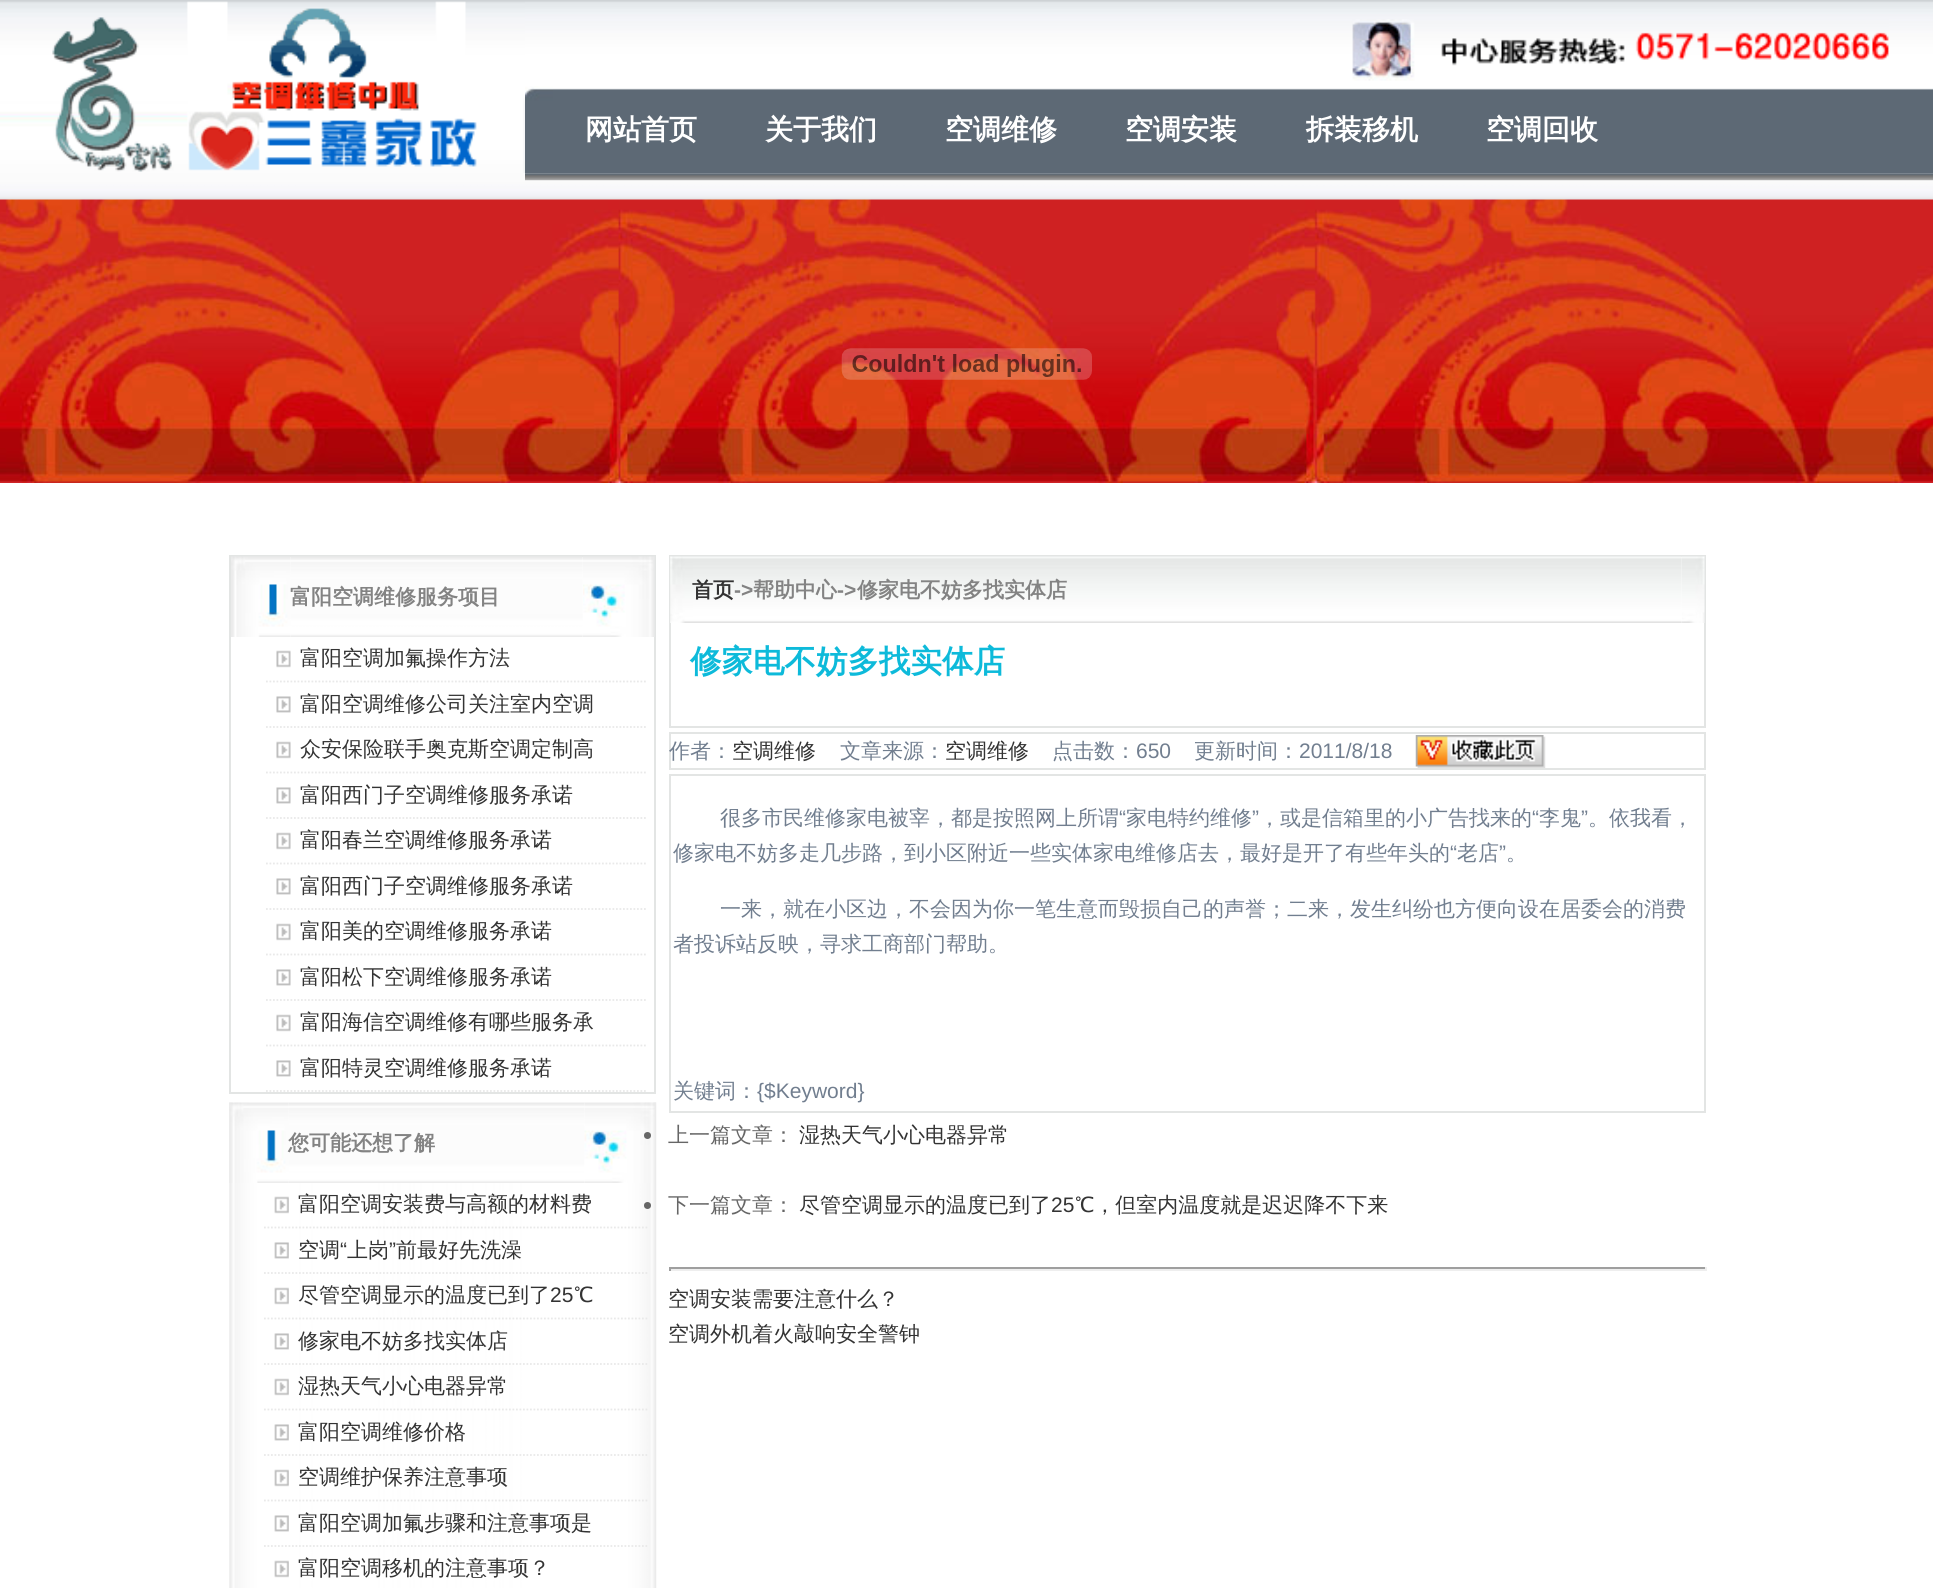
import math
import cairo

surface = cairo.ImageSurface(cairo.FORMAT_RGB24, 1933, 1588)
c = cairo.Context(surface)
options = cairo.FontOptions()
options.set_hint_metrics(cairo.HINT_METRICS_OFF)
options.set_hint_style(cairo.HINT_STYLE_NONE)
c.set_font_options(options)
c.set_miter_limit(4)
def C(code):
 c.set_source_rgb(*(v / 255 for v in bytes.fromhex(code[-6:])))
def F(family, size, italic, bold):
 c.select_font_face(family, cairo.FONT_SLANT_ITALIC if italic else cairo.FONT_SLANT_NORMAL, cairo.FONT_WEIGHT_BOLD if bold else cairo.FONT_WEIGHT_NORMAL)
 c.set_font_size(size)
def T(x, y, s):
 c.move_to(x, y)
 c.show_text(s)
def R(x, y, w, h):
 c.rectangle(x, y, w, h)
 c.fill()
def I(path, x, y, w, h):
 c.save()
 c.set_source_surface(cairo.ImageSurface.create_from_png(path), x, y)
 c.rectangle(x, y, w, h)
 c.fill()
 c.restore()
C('ffffff')
c.paint()
I('1.png',0,199,1933,284)
I('2.png',0,0,1933,200)
I('3.png',0,1,525,172)
I('4.png',1352,19,537,62)
I('6.png',553,88,1380,86)
I('7.png',525,173,1408,8)
I('5.png',525,86,28,88)
F('WenQuanYi Zen Hei',28,0,1)
C('ffffff')
T(585,139,'网站首页')
T(765,139,'关于我们')
T(945,139,'空调维修')
T(1125,139,'空调安装')
T(1306,139,'拆装移机')
T(1486,139,'空调回收')
I('8.png',841,348,251,32)
c.rectangle(230,556,425,537)
C('e3e5e4')
c.stroke()
I('10.png',290,556,293,81)
I('9.png',231,556,60,81)
F('WenQuanYi Zen Hei',21,0,1)
C('838383')
T(290,604,'富阳空调维修服务项目')
I('11.png',583,556,72,81)
I('12.png',276,650,15,18)
c.new_path()
c.move_to(266,681.5)
c.line_to(646,681.5)
C('e9e9e9')
c.set_line_width(1.8)
c.set_dash([1.75,1.75])
c.stroke()
F('WenQuanYi Zen Hei Medium',21,0,0)
C('333333')
T(300,665,'富阳空调加氟操作方法')
I('13.png',276,696,15,17)
c.new_path()
c.move_to(266,727)
c.line_to(646,727)
C('e9e9e9')
c.stroke()
C('333333')
T(300,711,'富阳空调维修公司关注室内空调')
I('12.png',276,741,15,18)
c.new_path()
c.move_to(266,772.5)
c.line_to(646,772.5)
C('e9e9e9')
c.stroke()
C('333333')
T(300,756,'众安保险联手奥克斯空调定制高')
I('13.png',276,787,15,17)
c.new_path()
c.move_to(266,818)
c.line_to(646,818)
C('e9e9e9')
c.stroke()
C('333333')
T(300,802,'富阳西门子空调维修服务承诺')
I('12.png',276,832,15,18)
c.new_path()
c.move_to(266,863.5)
c.line_to(646,863.5)
C('e9e9e9')
c.stroke()
C('333333')
T(300,847,'富阳春兰空调维修服务承诺')
I('13.png',276,878,15,17)
c.new_path()
c.move_to(266,909)
c.line_to(646,909)
C('e9e9e9')
c.stroke()
C('333333')
T(300,893,'富阳西门子空调维修服务承诺')
I('12.png',276,923,15,18)
c.new_path()
c.move_to(266,954.5)
c.line_to(646,954.5)
C('e9e9e9')
c.stroke()
C('333333')
T(300,938,'富阳美的空调维修服务承诺')
I('13.png',276,969,15,17)
c.new_path()
c.move_to(266,1000)
c.line_to(646,1000)
C('e9e9e9')
c.stroke()
C('333333')
T(300,984,'富阳松下空调维修服务承诺')
I('12.png',276,1014,15,18)
c.new_path()
c.move_to(266,1045.5)
c.line_to(646,1045.5)
C('e9e9e9')
c.stroke()
C('333333')
T(300,1029,'富阳海信空调维修有哪些服务承')
I('13.png',276,1060,15,17)
c.new_path()
c.move_to(266,1091)
c.line_to(646,1091)
C('e9e9e9')
c.stroke()
C('333333')
T(300,1075,'富阳特灵空调维修服务承诺')
I('14.png',229,1102,428,486)
I('16.png',288,1102,297,81)
I('15.png',229,1102,60,81)
F('WenQuanYi Zen Hei',21,0,1)
C('838383')
T(288,1150,'您可能还想了解')
I('17.png',584,1102,72,81)
I('18.png',274,1196,15,18)
c.new_path()
c.move_to(264,1227.5)
c.line_to(647.5,1227.5)
C('e9e9e9')
c.stroke()
F('WenQuanYi Zen Hei Medium',21,0,0)
C('333333')
T(298,1211,'富阳空调安装费与高额的材料费')
I('19.png',274,1242,15,17)
c.new_path()
c.move_to(264,1273)
c.line_to(647.5,1273)
C('e9e9e9')
c.stroke()
C('333333')
T(298,1257,'空调')
F('Liberation Sans',21,0,0)
T(340,1257,'“')
F('WenQuanYi Zen Hei Medium',21,0,0)
T(347,1257,'上岗')
F('Liberation Sans',21,0,0)
T(389,1257,'”')
F('WenQuanYi Zen Hei Medium',21,0,0)
T(396,1257,'前最好先洗澡')
I('18.png',274,1287,15,18)
c.new_path()
c.move_to(264,1318.5)
c.line_to(647.5,1318.5)
C('e9e9e9')
c.stroke()
C('333333')
T(298,1302,'尽管空调显示的温度已到了')
F('Liberation Sans',21,0,0)
T(550,1302,'25')
F('WenQuanYi Zen Hei Medium',21,0,0)
T(574,1302,'℃')
I('19.png',274,1333,15,17)
c.new_path()
c.move_to(264,1364)
c.line_to(647.5,1364)
C('e9e9e9')
c.stroke()
C('333333')
T(298,1348,'修家电不妨多找实体店')
I('18.png',274,1378,15,18)
c.new_path()
c.move_to(264,1409.5)
c.line_to(647.5,1409.5)
C('e9e9e9')
c.stroke()
C('333333')
T(298,1393,'湿热天气小心电器异常')
I('19.png',274,1424,15,17)
c.new_path()
c.move_to(264,1455)
c.line_to(647.5,1455)
C('e9e9e9')
c.stroke()
C('333333')
T(298,1439,'富阳空调维修价格')
I('18.png',274,1469,15,18)
c.new_path()
c.move_to(264,1500.5)
c.line_to(647.5,1500.5)
C('e9e9e9')
c.stroke()
C('333333')
T(298,1484,'空调维护保养注意事项')
I('19.png',274,1515,15,17)
c.new_path()
c.move_to(264,1546)
c.line_to(647.5,1546)
C('e9e9e9')
c.stroke()
C('333333')
T(298,1530,'富阳空调加氟步骤和注意事项是')
I('18.png',274,1560,15,18)
T(298,1575,'富阳空调移机的注意事项？')
c.rectangle(670,556,1035,171)
C('e3e5e4')
c.set_line_width(2)
c.set_dash([])
c.stroke()
I('20.png',670,556,23,67)
I('21.png',693,556,989,67)
F('WenQuanYi Zen Hei',21,0,1)
C('333333')
T(692,597,'首页')
F('Liberation Sans',21,0,1)
C('838383')
T(734,597,'->')
F('WenQuanYi Zen Hei',21,0,1)
T(753,597,'帮助中心')
F('Liberation Sans',21,0,1)
T(837,597,'->')
F('WenQuanYi Zen Hei',21,0,1)
T(857,597,'修家电不妨多找实体店')
I('22.png',1682,556,23,67)
F('WenQuanYi Zen Hei',31.5,0,1)
C('0dbada')
T(690,672,'修家电不妨多找实体店')
c.rectangle(670,733,1035,36)
C('e3e5e4')
c.stroke()
F('WenQuanYi Zen Hei Medium',21,0,0)
C('717e8f')
T(669,758,'作者：')
C('333333')
T(732,758,'空调维修')
C('717e8f')
T(840,758,'文章来源：')
C('333333')
T(945,758,'空调维修')
C('717e8f')
T(1052,758,'点击数：')
F('Liberation Sans',21,0,0)
T(1136,758,'650')
F('WenQuanYi Zen Hei Medium',21,0,0)
T(1194,758,'更新时间：')
F('Liberation Sans',21,0,0)
T(1299,758,'2011/8/18')
I('23.png',1415,735,131,33)
c.rectangle(670,775,1035,337)
C('e3e5e4')
c.stroke()
F('WenQuanYi Zen Hei Medium',21,0,0)
C('717e8f')
T(720,825,'很多市民维修家电被宰，都是按照网上所谓')
F('Liberation Sans',21,0,0)
T(1119,825,'“')
F('WenQuanYi Zen Hei Medium',21,0,0)
T(1126,825,'家电特约维修')
F('Liberation Sans',21,0,0)
T(1252,825,'”')
F('WenQuanYi Zen Hei Medium',21,0,0)
T(1259,825,'，或是信箱里的小广告找来的')
F('Liberation Sans',21,0,0)
T(1532,825,'“')
F('WenQuanYi Zen Hei Medium',21,0,0)
T(1539,825,'李鬼')
F('Liberation Sans',21,0,0)
T(1581,825,'”')
F('WenQuanYi Zen Hei Medium',21,0,0)
T(1588,825,'。依我看，')
T(673,860,'修家电不妨多走几步路，到小区附近一些实体家电维修店去，最好是开了有些年头的')
F('Liberation Sans',21,0,0)
T(1450,860,'“')
F('WenQuanYi Zen Hei Medium',21,0,0)
T(1457,860,'老店')
F('Liberation Sans',21,0,0)
T(1499,860,'”')
F('WenQuanYi Zen Hei Medium',21,0,0)
T(1506,860,'。')
T(720,916,'一来，就在小区边，不会因为你一笔生意而毁损自己的声誉；二来，发生纠纷也方便向设在居委会的消费')
T(673,951,'者投诉站反映，寻求工商部门帮助。')
T(673,1098,'关键词：')
F('Liberation Sans',21,0,0)
T(757,1098,'{$Keyword}')
C('666666')
c.new_path()
c.arc(647.5,1135.5,3.5,0,2 * math.pi)
c.fill()
F('WenQuanYi Zen Hei Medium',21,0,0)
T(668,1142,'上一篇文章：')
C('333333')
T(799,1142,'湿热天气小心电器异常')
C('666666')
c.new_path()
c.arc(647.5,1205.5,3.5,0,2 * math.pi)
c.fill()
T(668,1212,'下一篇文章：')
C('333333')
T(799,1212,'尽管空调显示的温度已到了')
F('Liberation Sans',21,0,0)
T(1051,1212,'25')
F('WenQuanYi Zen Hei Medium',21,0,0)
T(1075,1212,'℃，但室内温度就是迟迟降不下来')
C('9f9f9f')
R(669,1267,1037,2)
C('eeeeee')
R(1705,1267,2,4)
R(669,1269,1037,2)
C('9f9f9f')
R(669,1267,2,4)
C('333333')
T(668,1306,'空调安装需要注意什么？')
T(668,1341,'空调外机着火敲响安全警钟')
surface.write_to_png('o.png')
